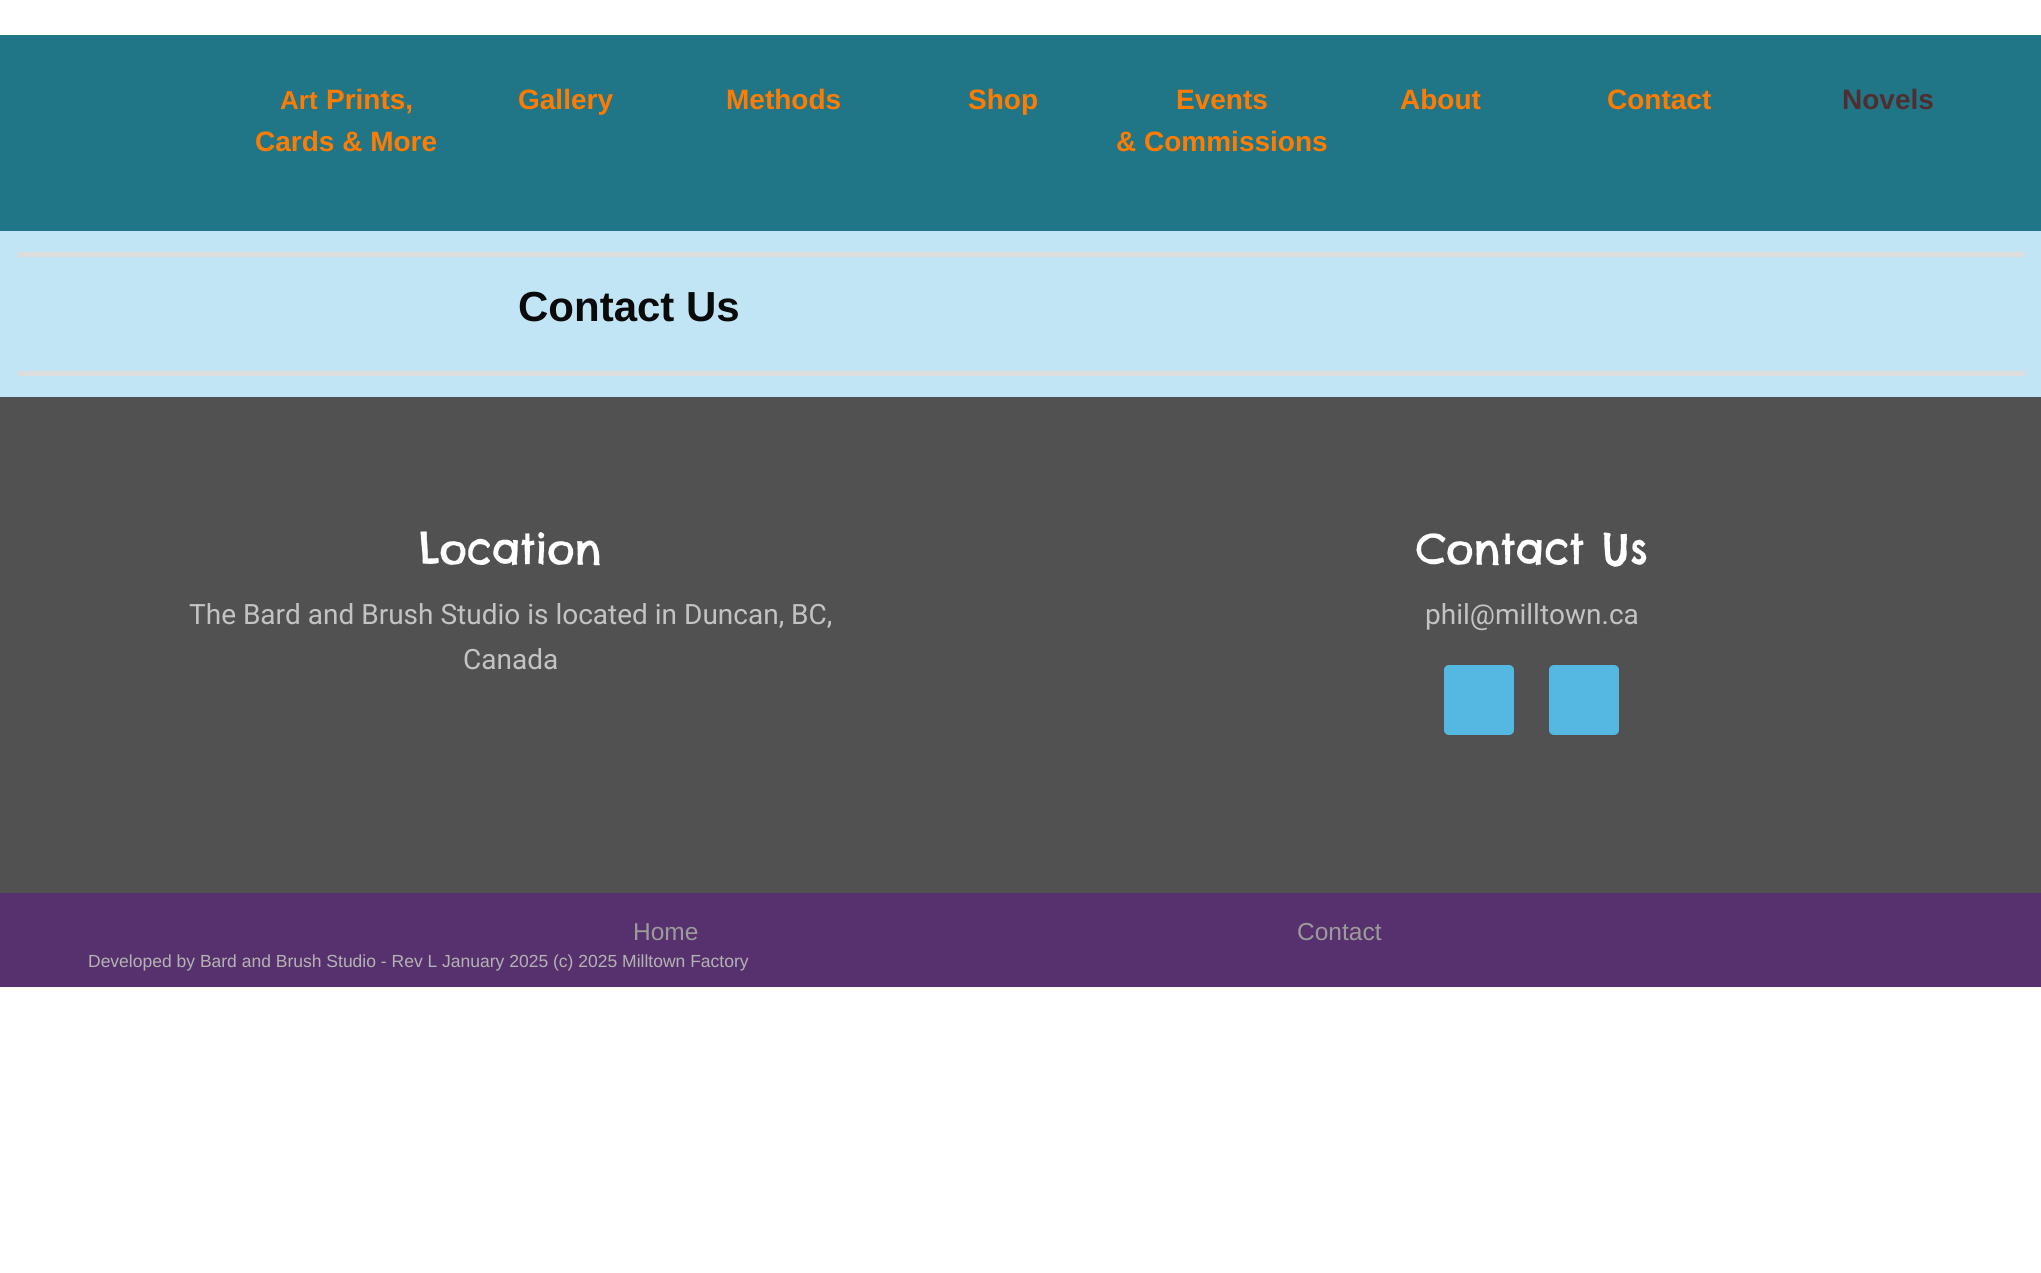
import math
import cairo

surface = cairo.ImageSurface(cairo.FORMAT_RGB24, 2041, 1273)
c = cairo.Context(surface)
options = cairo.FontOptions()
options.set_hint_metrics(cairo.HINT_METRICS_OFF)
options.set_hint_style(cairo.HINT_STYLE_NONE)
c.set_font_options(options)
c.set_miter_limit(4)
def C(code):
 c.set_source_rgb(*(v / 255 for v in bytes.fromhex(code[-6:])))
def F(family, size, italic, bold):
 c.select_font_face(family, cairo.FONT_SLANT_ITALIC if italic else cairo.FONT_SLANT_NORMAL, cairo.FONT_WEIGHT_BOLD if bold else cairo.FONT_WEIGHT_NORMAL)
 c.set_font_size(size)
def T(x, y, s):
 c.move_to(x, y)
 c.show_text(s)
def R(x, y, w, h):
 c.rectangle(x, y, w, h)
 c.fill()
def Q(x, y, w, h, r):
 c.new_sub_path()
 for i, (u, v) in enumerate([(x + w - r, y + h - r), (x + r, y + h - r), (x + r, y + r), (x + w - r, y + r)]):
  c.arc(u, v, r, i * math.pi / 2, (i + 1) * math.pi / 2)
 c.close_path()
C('ffffff')
c.paint()
C('207586')
R(0,35,2041,196)
F('Liberation Sans',26,0,1)
C('ff7c00')
T(280,109,'Art')
F('Liberation Sans',28,0,1)
T(326,109,'Prints,')
T(255,151,'Cards & More')
T(518,109,'Gallery')
T(726,109,'Methods')
T(968,109,'Shop')
T(1176,109,'Events')
T(1116,151,'& Commissions')
T(1400,109,'About')
T(1607,109,'Contact')
C('4e2e2e')
T(1842,109,'Novels')
C('c1e5f5')
R(0,231,2041,166)
C('dddddd')
R(18,252,2007,5)
F('Liberation Sans',42,0,1)
C('0a0a0a')
T(518,321,'Contact Us')
C('dddddd')
R(18,371,2007,5)
C('515151')
R(0,397,2041,496)
F('Chelsea Market',42,0,0)
C('ffffff')
T(419,564,'Location')
F('Roboto',28,0,0)
C('c3c3c3')
T(189,624,'The Bard and Brush Studio is located in Duncan, BC,')
T(463,669,'Canada')
F('Chelsea Market',42,0,0)
C('ffffff')
T(1416,564,'Contact Us')
F('Roboto',28,0,0)
C('c3c3c3')
T(1425,624,'phil@milltown.ca')
C('55b8e2')
Q(1444,665,70,70,5)
c.fill()
Q(1549,665,70,70,5)
c.fill()
C('57316d')
R(0,893,2041,94)
F('Liberation Sans',24.5,0,0)
C('9b9b9b')
T(633,940,'Home')
T(1297,940,'Contact')
F('Liberation Sans',17.5,0,0)
C('b3b3b3')
T(88,967,'Developed by Bard and Brush Studio - Rev L January 2025 (c) 2025 Milltown Factory')
surface.write_to_png('o.png')
